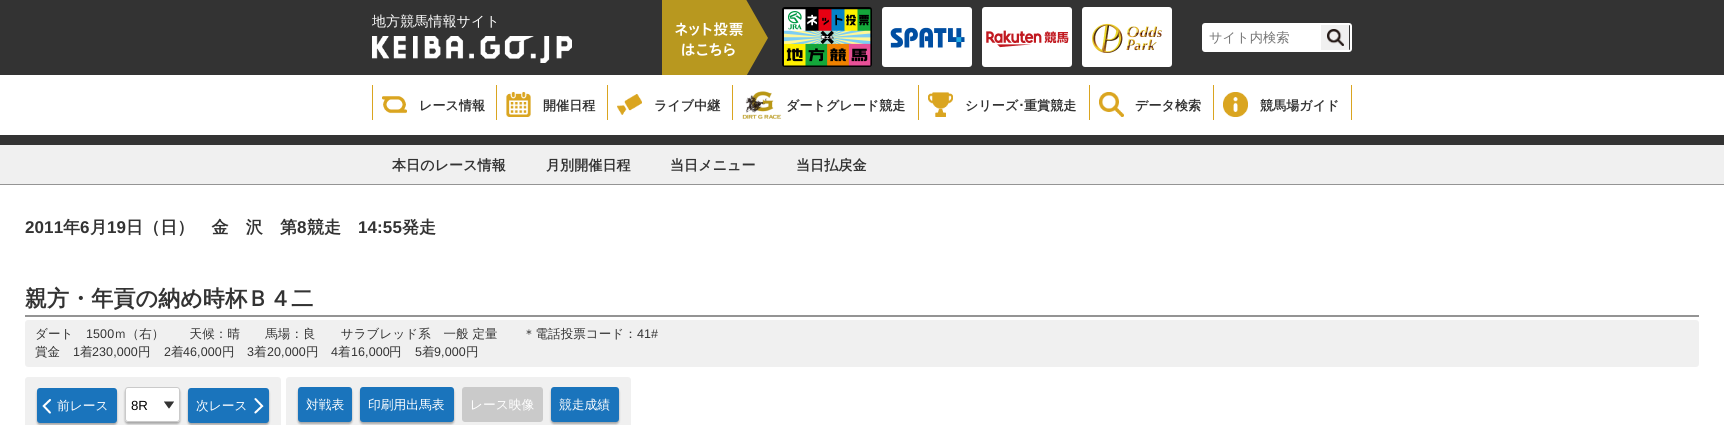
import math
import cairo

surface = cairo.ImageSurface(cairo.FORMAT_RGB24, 1724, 425)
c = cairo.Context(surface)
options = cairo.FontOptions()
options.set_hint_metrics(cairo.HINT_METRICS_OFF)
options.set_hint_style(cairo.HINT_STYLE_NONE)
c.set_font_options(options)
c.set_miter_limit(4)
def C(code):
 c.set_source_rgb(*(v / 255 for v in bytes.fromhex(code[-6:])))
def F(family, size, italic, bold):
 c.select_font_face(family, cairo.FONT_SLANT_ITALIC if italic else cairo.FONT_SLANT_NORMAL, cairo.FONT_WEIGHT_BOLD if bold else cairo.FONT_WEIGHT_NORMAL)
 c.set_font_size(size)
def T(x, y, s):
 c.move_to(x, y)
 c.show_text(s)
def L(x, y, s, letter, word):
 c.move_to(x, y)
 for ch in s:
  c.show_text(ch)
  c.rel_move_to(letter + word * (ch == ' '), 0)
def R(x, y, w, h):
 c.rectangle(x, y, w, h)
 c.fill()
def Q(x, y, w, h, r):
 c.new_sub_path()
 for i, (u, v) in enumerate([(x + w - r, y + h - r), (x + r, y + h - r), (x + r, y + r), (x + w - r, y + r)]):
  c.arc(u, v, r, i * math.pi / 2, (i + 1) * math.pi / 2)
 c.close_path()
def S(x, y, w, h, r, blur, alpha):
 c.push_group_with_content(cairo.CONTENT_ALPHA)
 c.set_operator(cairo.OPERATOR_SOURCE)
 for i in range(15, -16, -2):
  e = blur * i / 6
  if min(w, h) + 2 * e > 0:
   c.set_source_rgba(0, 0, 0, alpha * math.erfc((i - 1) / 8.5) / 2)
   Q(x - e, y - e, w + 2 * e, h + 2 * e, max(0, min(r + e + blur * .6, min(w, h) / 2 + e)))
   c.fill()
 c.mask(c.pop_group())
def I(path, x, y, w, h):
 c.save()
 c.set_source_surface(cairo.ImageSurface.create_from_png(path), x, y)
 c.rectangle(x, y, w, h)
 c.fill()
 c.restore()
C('ffffff')
c.paint()
C('333333')
R(0,0,1724,75)
F('WenQuanYi Zen Hei Medium',14,0,0)
C('ffffff')
L(372,26,'地方競馬情報サイト',.1,0)
I('1.png',372,36,200,27)
I('2.png',662,0,106,75)
I('3.png',782,7,90,60)
Q(882,7,90,60,3)
c.fill()
I('4.png',890,27,75,21)
Q(982,7,90,60,3)
c.fill()
I('5.png',986,30,83,18)
Q(1082,7,90,60,3)
c.fill()
I('6.png',1092,23,70,30)
Q(1203,24,148,27,2)
c.stroke()
R(1204,25,117,25)
F('WenQuanYi Zen Hei Medium',13.25,0,0)
C('757575')
T(1209,42,'サイト内検索')
C('f0f0f0')
R(1321,25,28,25)
I('7.png',1327,29,17,17)
C('daa520')
R(372,85,1,35)
I('8.png',382,96,25,18)
F('WenQuanYi Zen Hei',13,0,1)
C('333333')
L(419,110,'レース情報',.1,0)
C('daa520')
R(496,85,1,35)
I('9.png',506,92,25,25)
C('333333')
L(543,110,'開催日程',.1,0)
C('daa520')
R(607,85,1,35)
I('10.png',617,94,25,21)
C('333333')
L(654,110,'ライブ中継',.1,0)
C('daa520')
R(732,85,1,35)
I('11.png',742,91,40,28)
C('333333')
L(786,110,'ダートグレード競走',.1,0)
C('daa520')
R(918,85,1,35)
I('12.png',928,92,25,25)
C('333333')
L(965,110,'シリーズ',.1,0)
F('IPAPGothic',13,0,1)
L(1018,110,'･',.1,0)
F('WenQuanYi Zen Hei',13,0,1)
L(1024,110,'重賞競走',.1,0)
C('daa520')
R(1089,85,1,35)
I('13.png',1099,92,25,25)
C('333333')
L(1135,110,'データ検索',.1,0)
C('daa520')
R(1351,85,1,35)
R(1213,85,1,35)
I('14.png',1223,92,25,25)
C('333333')
L(1260,110,'競馬場ガイド',.1,0)
R(0,135,1724,10)
C('f0f0f0')
R(0,145,1724,39)
C('949494')
R(0,184,1724,1)
F('WenQuanYi Zen Hei',14,0,1)
C('333333')
L(392,170,'本日のレース情報',.1,0)
L(546,170,'月別開催日程',.1,0)
L(670,170,'当日メニュー',.1,0)
L(796,170,'当日払戻金',.1,0)
F('Liberation Sans',17,0,1)
L(25,233,'2011',.1,0)
F('WenQuanYi Zen Hei',17,0,1)
L(63,233,'年',.1,0)
F('Liberation Sans',17,0,1)
L(80,233,'6',.1,0)
F('WenQuanYi Zen Hei',17,0,1)
L(90,233,'月',.1,0)
F('Liberation Sans',17,0,1)
L(107,233,'19',.1,0)
F('WenQuanYi Zen Hei',17,0,1)
L(126,233,'日（日）　金　沢　第',.1,0)
F('Liberation Sans',17,0,1)
L(297,233,'8',.1,0)
F('WenQuanYi Zen Hei',17,0,1)
L(307,233,'競走',.1,0)
F('Liberation Sans',17,0,1)
L(358,233,'14:55',.1,0)
F('WenQuanYi Zen Hei',17,0,1)
L(402,233,'発走',.1,0)
C('949494')
R(25,315,1674,2)
F('WenQuanYi Zen Hei',22,0,1)
C('333333')
L(25,306,'親方・年貢の納め時杯Ｂ４二',.1,0)
C('f0f0f0')
Q(25,320,1674,47,3)
c.fill()
F('WenQuanYi Zen Hei Medium',12.5,0,0)
C('333333')
L(35,338,'ダート',.1,0)
F('Liberation Sans',12.5,0,0)
L(86,338,'1500',.1,0)
F('WenQuanYi Zen Hei Medium',12.5,0,0)
L(114,338,'ｍ（右）　　天候：晴　　馬場：良　　サラブレッド系　一般 定量　　＊電話投票コード：',.1,0)
F('Liberation Sans',12.5,0,0)
L(637,338,'41#',.1,0)
F('WenQuanYi Zen Hei Medium',12.5,0,0)
L(35,356,'賞金',.1,0)
F('Liberation Sans',12.5,0,0)
L(73,356,'1',.1,0)
F('WenQuanYi Zen Hei Medium',12.5,0,0)
L(80,356,'着',.1,0)
F('Liberation Sans',12.5,0,0)
L(92,356,'230,000',.1,0)
F('WenQuanYi Zen Hei Medium',12.5,0,0)
L(138,356,'円',.1,0)
F('Liberation Sans',12.5,0,0)
L(164,356,'2',.1,0)
F('WenQuanYi Zen Hei Medium',12.5,0,0)
L(171,356,'着',.1,0)
F('Liberation Sans',12.5,0,0)
L(183,356,'46,000',.1,0)
F('WenQuanYi Zen Hei Medium',12.5,0,0)
L(222,356,'円',.1,0)
F('Liberation Sans',12.5,0,0)
L(247,356,'3',.1,0)
F('WenQuanYi Zen Hei Medium',12.5,0,0)
L(254,356,'着',.1,0)
F('Liberation Sans',12.5,0,0)
L(267,356,'20,000',.1,0)
F('WenQuanYi Zen Hei Medium',12.5,0,0)
L(306,356,'円',.1,0)
F('Liberation Sans',12.5,0,0)
L(331,356,'4',.1,0)
F('WenQuanYi Zen Hei Medium',12.5,0,0)
L(338,356,'着',.1,0)
F('Liberation Sans',12.5,0,0)
L(351,356,'16,000',.1,0)
F('WenQuanYi Zen Hei Medium',12.5,0,0)
L(389,356,'円',.1,0)
F('Liberation Sans',12.5,0,0)
L(415,356,'5',.1,0)
F('WenQuanYi Zen Hei Medium',12.5,0,0)
L(422,356,'着',.1,0)
F('Liberation Sans',12.5,0,0)
L(434,356,'9,000',.1,0)
F('WenQuanYi Zen Hei Medium',12.5,0,0)
L(466,356,'円',.1,0)
C('f0f0f0')
Q(25,377,256,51,3)
c.fill()
C('000000')
S(37,390,80,35,3,1,.3)
C('1a74bc')
Q(37,388,80,35,3)
c.fill()
I('15.png',42,399,9,15)
F('WenQuanYi Zen Hei Medium',12.75,0,0)
C('ffffff')
T(57,410,'前レース')
C('000000')
S(125,389,55,35,3,1,.3)
C('ffffff')
Q(125,387,55,35,3)
c.fill()
I('16.png',164,401,10,8)
Q(125.5,387.5,54,34,2.5)
C('cacaca')
c.set_line_width(1)
c.stroke()
F('Liberation Sans',13.25,0,0)
C('000000')
T(131,410,'8R')
C('000000')
S(188,390,81,35,3,1,.3)
C('1a74bc')
Q(188,388,81,35,3)
c.fill()
I('17.png',254,398,10,16)
F('WenQuanYi Zen Hei Medium',12.75,0,0)
C('ffffff')
T(196,410,'次レース')
C('f0f0f0')
Q(286,377,345,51,3)
c.fill()
C('000000')
S(298,389,54,35,3,1,.3)
C('1a74bc')
Q(298,387,54,35,3)
c.fill()
C('ffffff')
T(306,409,'対戦表')
C('000000')
S(360,389,94,35,3,1,.3)
C('1a74bc')
Q(360,387,94,35,3)
c.fill()
C('ffffff')
T(368,409,'印刷用出馬表')
C('cacaca')
Q(462,387,81,35,3)
c.fill()
C('ffffff')
T(470,409,'レース映像')
C('000000')
S(551,389,68,35,3,1,.3)
C('1a74bc')
Q(551,387,68,35,3)
c.fill()
C('ffffff')
T(559,409,'競走成績')
surface.write_to_png('o.png')
